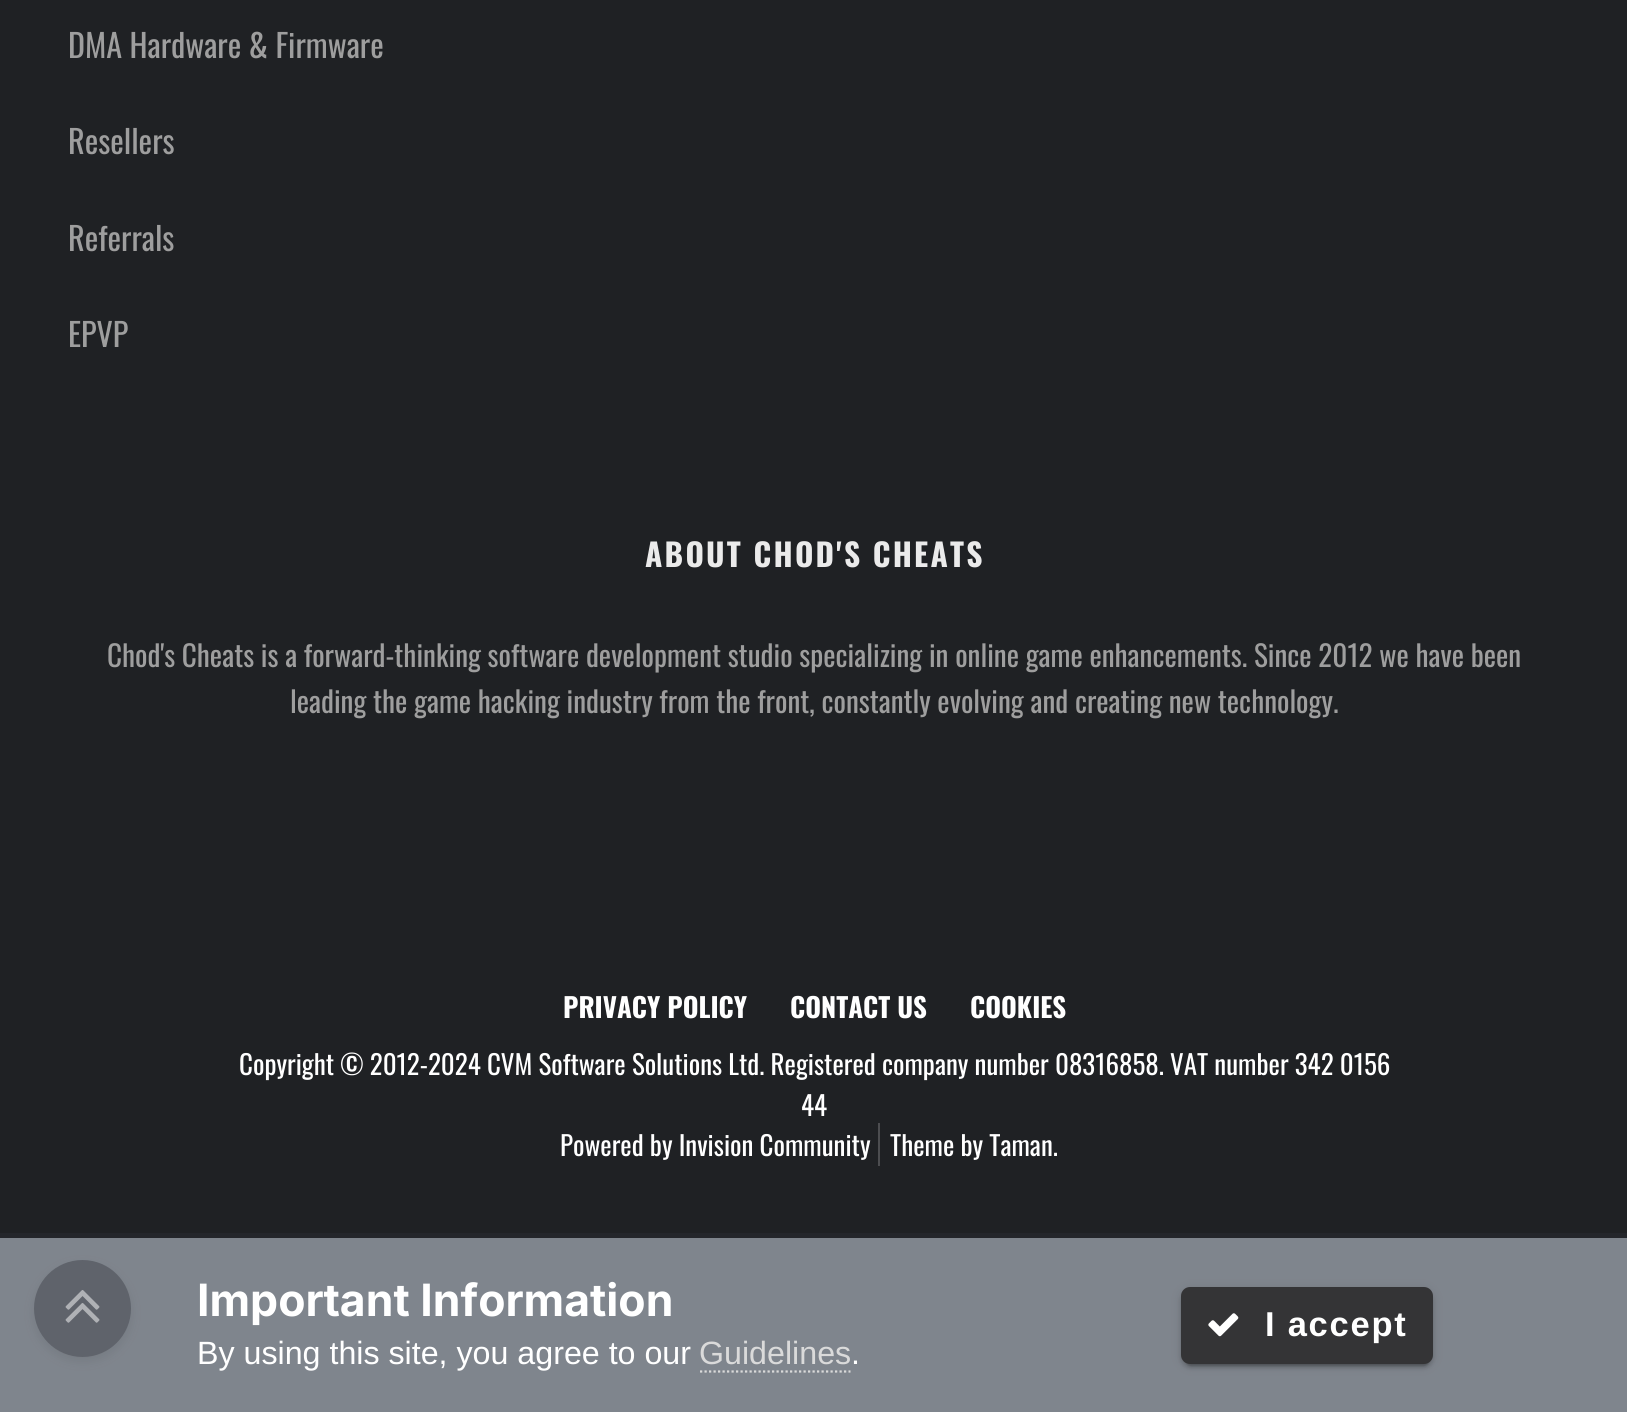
import math
import cairo

surface = cairo.ImageSurface(cairo.FORMAT_RGB24, 1627, 1412)
c = cairo.Context(surface)
options = cairo.FontOptions()
options.set_hint_metrics(cairo.HINT_METRICS_OFF)
options.set_hint_style(cairo.HINT_STYLE_NONE)
c.set_font_options(options)
c.set_miter_limit(4)
def C(code):
 c.set_source_rgb(*(v / 255 for v in bytes.fromhex(code[-6:])))
def F(family, size, italic, bold):
 c.select_font_face(family, cairo.FONT_SLANT_ITALIC if italic else cairo.FONT_SLANT_NORMAL, cairo.FONT_WEIGHT_BOLD if bold else cairo.FONT_WEIGHT_NORMAL)
 c.set_font_size(size)
def T(x, y, s):
 c.move_to(x, y)
 c.show_text(s)
def L(x, y, s, letter, word):
 c.move_to(x, y)
 for ch in s:
  c.show_text(ch)
  c.rel_move_to(letter + word * (ch == ' '), 0)
def R(x, y, w, h):
 c.rectangle(x, y, w, h)
 c.fill()
def Q(x, y, w, h, r):
 c.new_sub_path()
 for i, (u, v) in enumerate([(x + w - r, y + h - r), (x + r, y + h - r), (x + r, y + r), (x + w - r, y + r)]):
  c.arc(u, v, r, i * math.pi / 2, (i + 1) * math.pi / 2)
 c.close_path()
def S(x, y, w, h, r, blur, alpha):
 c.push_group_with_content(cairo.CONTENT_ALPHA)
 c.set_operator(cairo.OPERATOR_SOURCE)
 for i in range(15, -16, -2):
  e = blur * i / 6
  if min(w, h) + 2 * e > 0:
   c.set_source_rgba(0, 0, 0, alpha * math.erfc((i - 1) / 8.5) / 2)
   Q(x - e, y - e, w + 2 * e, h + 2 * e, max(0, min(r + e + blur * .6, min(w, h) / 2 + e)))
   c.fill()
 c.mask(c.pop_group())
def I(path, x, y, w, h):
 c.save()
 c.set_source_surface(cairo.ImageSurface.create_from_png(path), x, y)
 c.rectangle(x, y, w, h)
 c.fill()
 c.restore()
C('24262b')
c.paint()
C('1f2124')
R(0,0,1627,1233)
F('Oswald',32.2,0,0)
C('9e9e9e')
T(68,58,'DMA Hardware & Firmware')
T(68,154,'Resellers')
T(68,251,'Referrals')
T(68,347,'EPVP')
F('Oswald',31.5,0,1)
C('ebebeb')
L(645,567,'ABOUT CHOD\'S CHEATS',2.25,0)
F('Oswald',29.25,0,0)
C('9e9e9e')
T(107,667,'Chod\'s Cheats is a forward-thinking software development studio specializing in online game enhancements. Since 2012 we have been')
T(290,713,'leading the game hacking industry from the front, constantly evolving and creating new technology.')
F('Oswald',27,0,1)
C('ffffff')
T(563,1018,'PRIVACY POLICY')
T(790,1018,'CONTACT US')
T(970,1018,'COOKIES')
F('Oswald',27,0,0)
T(239,1075,'Copyright © 2012-2024 CVM Software Solutions Ltd. Registered company number 08316858. VAT number 342 0156')
T(801,1116,'44')
T(560,1156,'Powered by Invision Community')
T(890,1156,'Theme by Taman.')
C('4c4d50')
R(878,1123,2,43)
C('7f858d')
R(0,1238,1627,174)
C('404347')
S(34,1265,97,96,48,5.5,.16)
C('5f636b')
c.arc(82.5,1308.5,48.5,0,2 * math.pi)
c.fill()
I('1.png',65,1290,35,33)
F('Inter',44.5,0,1)
C('ffffff')
T(197,1316,'Important Information')
F('Liberation Sans',32.2,0,0)
T(197,1364,'By using this site, you agree to our')
C('dadada')
T(699,1364,'Guidelines')
c.new_path()
c.move_to(700,1371.5)
c.line_to(850.5,1371.5)
c.set_line_width(2.2)
c.set_dash([2.25,2.25])
c.stroke()
C('ffffff')
T(851,1364,'.')
C('000000')
S(1186,1298,243,68,5,1,.2)
S(1181,1289,252,77,9,5.5,.12)
S(1181,1292,252,76,9,2,.14)
C('343436')
Q(1181,1287,252,77,9)
c.fill()
I('2.png',1208,1313,31,24)
F('Liberation Sans',34.5,0,1)
C('ffffff')
L(1265,1336,'I accept',1.75,0)
surface.write_to_png('o.png')
